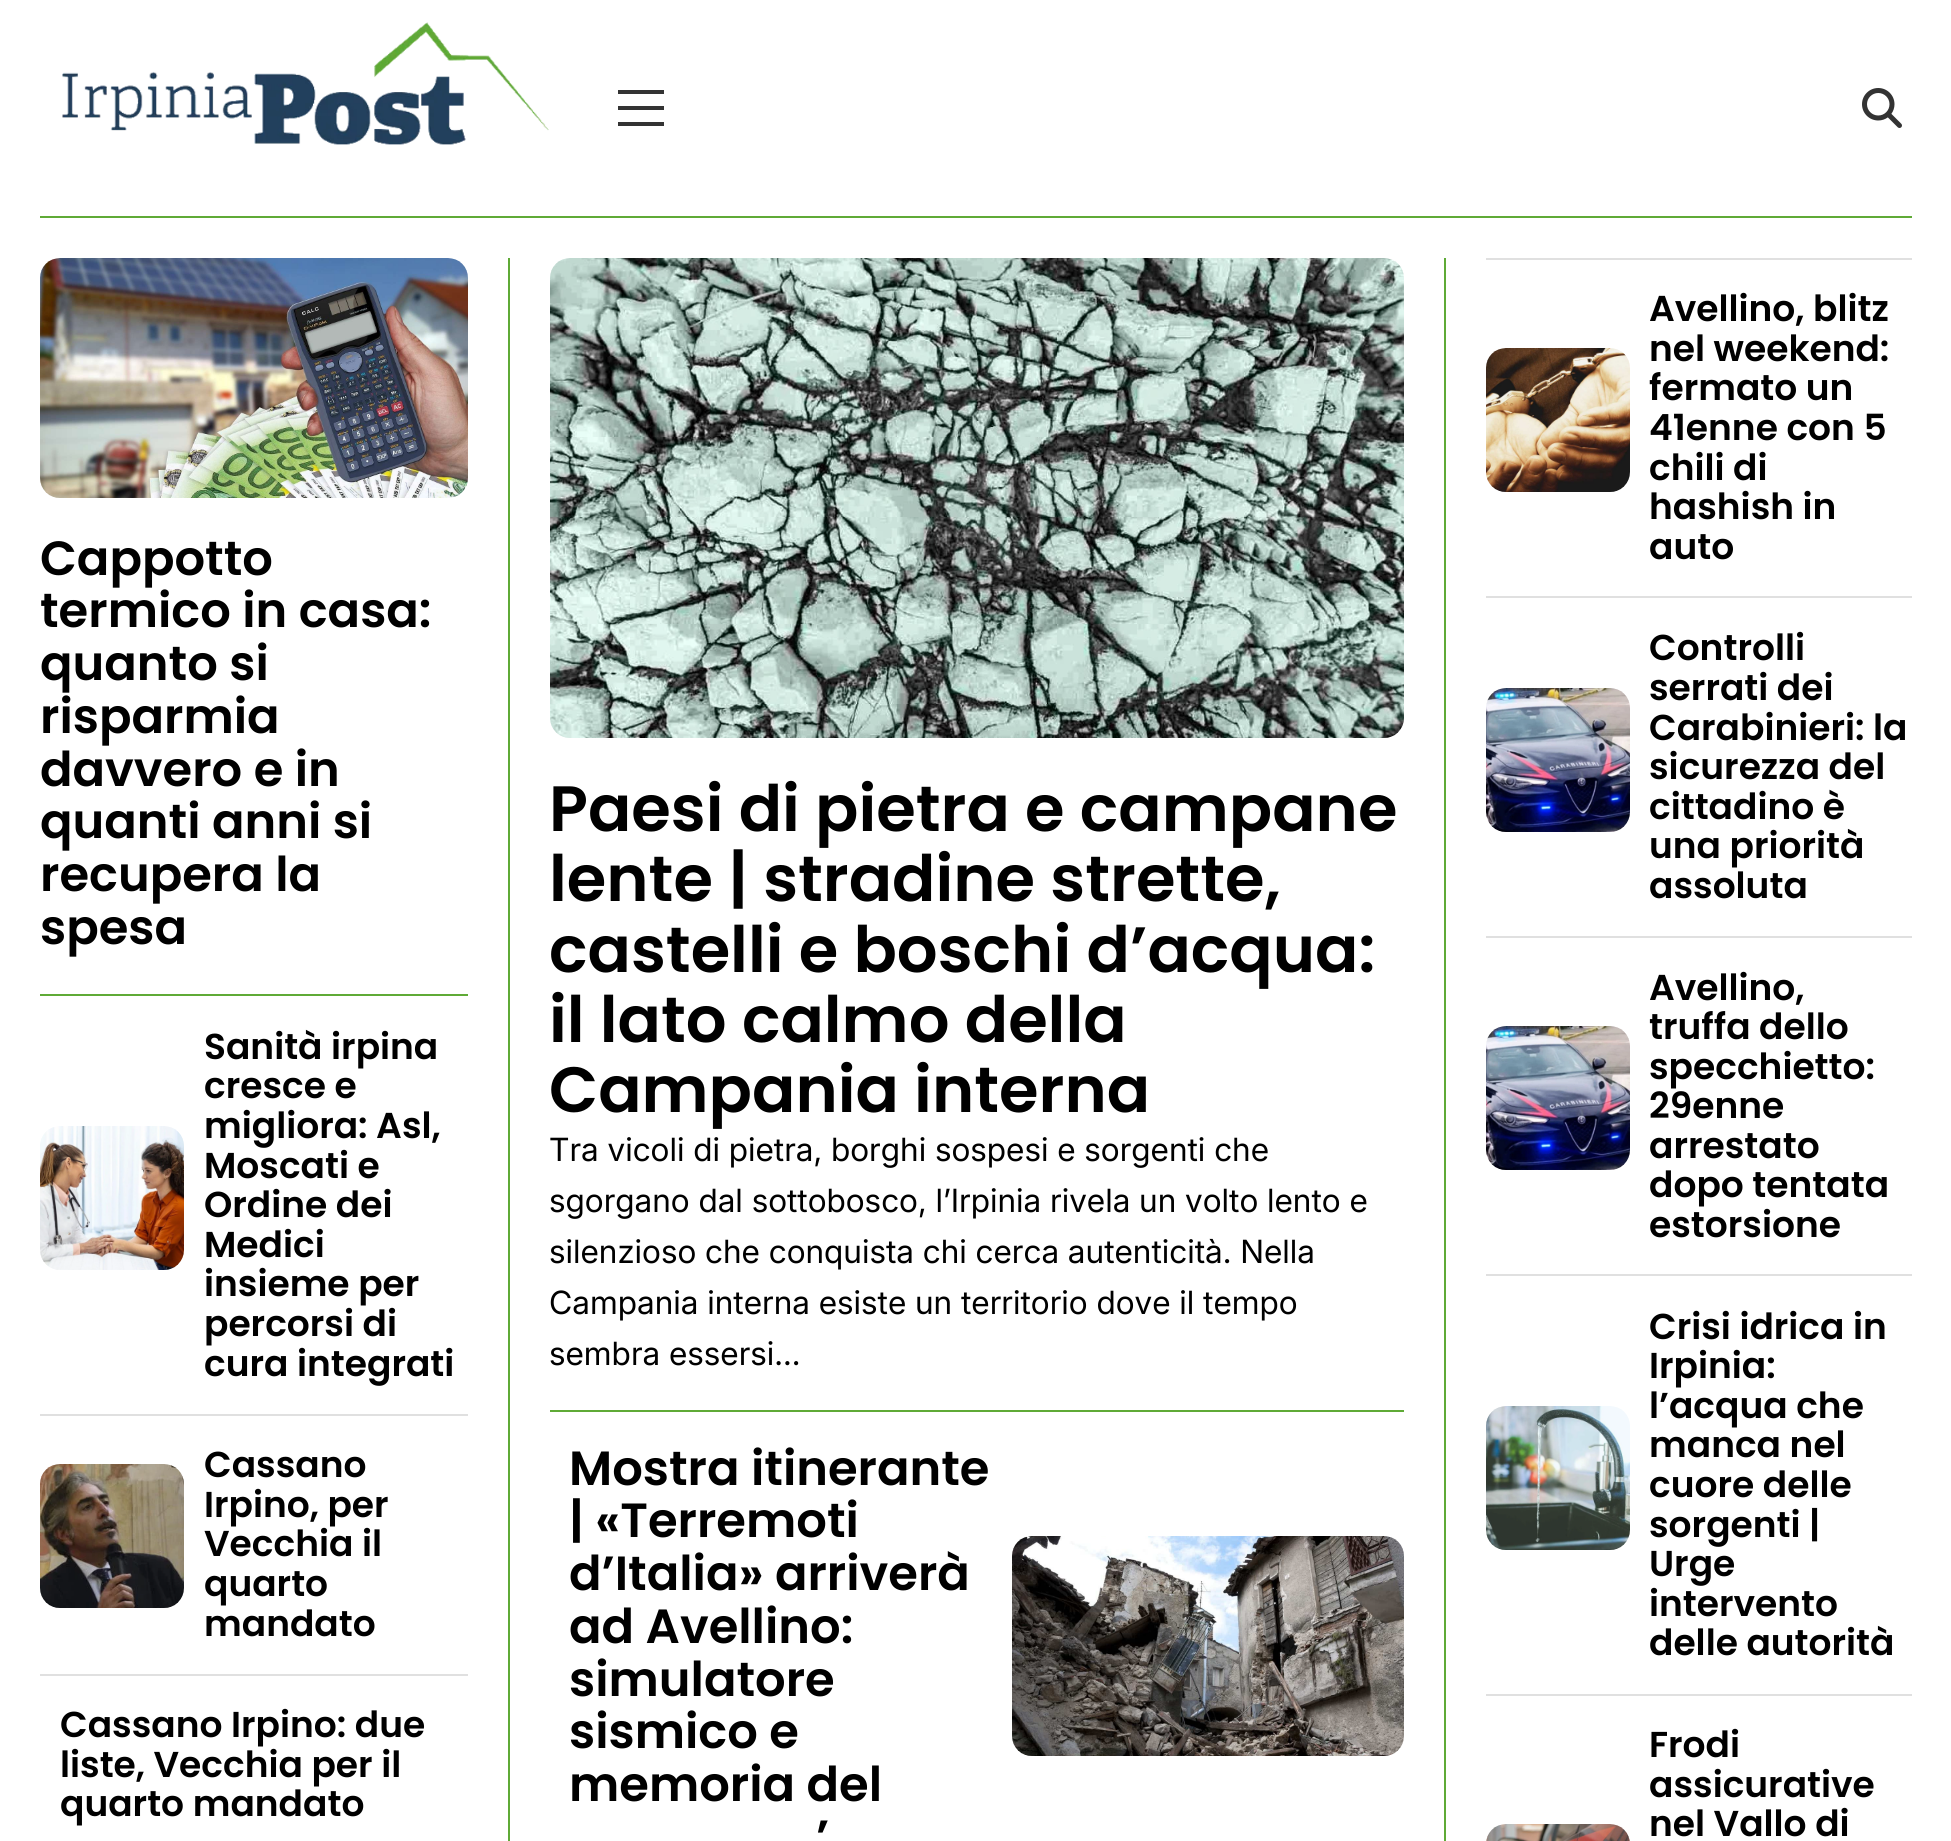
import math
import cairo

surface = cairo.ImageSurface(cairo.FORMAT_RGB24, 1951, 1841)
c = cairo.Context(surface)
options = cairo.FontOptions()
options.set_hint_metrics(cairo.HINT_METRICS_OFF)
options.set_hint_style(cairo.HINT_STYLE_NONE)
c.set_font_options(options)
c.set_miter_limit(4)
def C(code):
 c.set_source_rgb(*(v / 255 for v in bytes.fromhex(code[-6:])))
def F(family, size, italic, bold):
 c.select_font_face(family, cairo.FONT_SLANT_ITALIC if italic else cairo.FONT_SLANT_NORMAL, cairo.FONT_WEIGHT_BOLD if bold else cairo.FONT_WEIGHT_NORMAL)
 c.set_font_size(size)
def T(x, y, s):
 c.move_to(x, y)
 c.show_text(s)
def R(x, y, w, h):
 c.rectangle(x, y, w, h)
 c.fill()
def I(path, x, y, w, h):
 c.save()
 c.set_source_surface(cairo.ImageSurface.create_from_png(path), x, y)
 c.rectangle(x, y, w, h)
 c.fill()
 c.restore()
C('ffffff')
c.paint()
C('5faa36')
R(40,216,1872,2)
I('1.png',62,22,487,123)
C('333333')
R(618,106,46,4)
R(618,90,46,4)
R(618,122,46,4)
I('2.png',1862,88,40,40)
C('5faa36')
R(508,258,2,1583)
R(40,994,428,2)
I('3.png',40,258,428,240)
F('Poppins SemiBold',48,0,0)
C('000000')
T(40,575,'Cappotto')
T(40,627,'termico in casa:')
T(40,680,'quanto si')
T(40,733,'risparmia')
T(40,786,'davvero e in')
T(40,838,'quanti anni si')
T(40,891,'recupera la')
T(40,944,'spesa')
I('4.png',40,1126,144,144)
F('Poppins SemiBold',36,0,0)
T(204,1059,'Sanità irpina')
T(204,1098,'cresce e')
T(204,1138,'migliora: Asl,')
T(204,1178,'Moscati e')
T(204,1217,'Ordine dei')
T(204,1257,'Medici')
T(204,1296,'insieme per')
T(204,1336,'percorsi di')
T(204,1376,'cura integrati')
C('e0e0e0')
R(40,1414,428,2)
I('5.png',40,1464,144,144)
C('000000')
T(204,1477,'Cassano')
T(204,1517,'Irpino, per')
T(204,1556,'Vecchia il')
T(204,1596,'quarto')
T(204,1636,'mandato')
C('e0e0e0')
R(40,1674,428,2)
C('000000')
T(60,1737,'Cassano Irpino: due')
T(60,1777,'liste, Vecchia per il')
T(60,1816,'quarto mandato')
I('6.png',550,258,854,480)
F('Poppins SemiBold',64,0,0)
T(549,831,'Paesi di pietra e campane')
T(549,901,'lente | stradine strette,')
T(549,972,'castelli e boschi d’acqua:')
T(549,1042,'il lato calmo della')
T(549,1112,'Campania interna')
F('Inter',32,0,0)
T(549,1161,'Tra vicoli di pietra, borghi sospesi e sorgenti che')
T(549,1212,'sgorgano dal sottobosco, l’Irpinia rivela un volto lento e')
T(549,1263,'silenzioso che conquista chi cerca autenticità. Nella')
T(549,1314,'Campania interna esiste un territorio dove il tempo')
T(549,1365,'sembra essersi...')
C('5faa36')
R(550,1410,854,2)
F('Poppins SemiBold',48,0,0)
C('000000')
T(569,1485,'Mostra itinerante')
T(569,1537,'| «Terremoti')
T(569,1590,'d’Italia» arriverà')
T(569,1643,'ad Avellino:')
T(569,1696,'simulatore')
T(569,1748,'sismico e')
T(569,1801,'memoria del')
T(816,1854,'’')
I('7.png',1012,1536,392,220)
C('5faa36')
R(1444,258,2,1583)
C('e0e0e0')
R(1486,258,426,2)
I('8.png',1486,348,144,144)
F('Poppins SemiBold',36,0,0)
C('000000')
T(1649,321,'Avellino, blitz')
T(1649,361,'nel weekend:')
T(1649,400,'fermato un')
T(1649,440,'41enne con 5')
T(1649,480,'chili di')
T(1649,519,'hashish in')
T(1649,559,'auto')
C('e0e0e0')
R(1486,596,426,2)
I('9.png',1486,688,144,144)
C('000000')
T(1649,660,'Controlli')
T(1649,700,'serrati dei')
T(1649,740,'Carabinieri: la')
T(1649,779,'sicurezza del')
T(1649,819,'cittadino è')
T(1649,858,'una priorità')
T(1649,898,'assoluta')
C('e0e0e0')
R(1486,936,426,2)
I('9.png',1486,1026,144,144)
C('000000')
T(1649,1000,'Avellino,')
T(1649,1039,'truffa dello')
T(1649,1079,'specchietto:')
T(1649,1118,'29enne')
T(1649,1158,'arrestato')
T(1649,1197,'dopo tentata')
T(1649,1237,'estorsione')
C('e0e0e0')
R(1486,1274,426,2)
I('10.png',1486,1406,144,144)
C('000000')
T(1649,1339,'Crisi idrica in')
T(1649,1378,'Irpinia:')
T(1649,1418,'l’acqua che')
T(1649,1457,'manca nel')
T(1649,1497,'cuore delle')
T(1649,1537,'sorgenti |')
T(1649,1576,'Urge')
T(1649,1616,'intervento')
T(1649,1655,'delle autorità')
C('e0e0e0')
R(1486,1694,426,2)
I('11.png',1486,1824,144,17)
C('000000')
T(1649,1757,'Frodi')
T(1649,1797,'assicurative')
T(1649,1836,'nel Vallo di')
surface.write_to_png('o.png')
